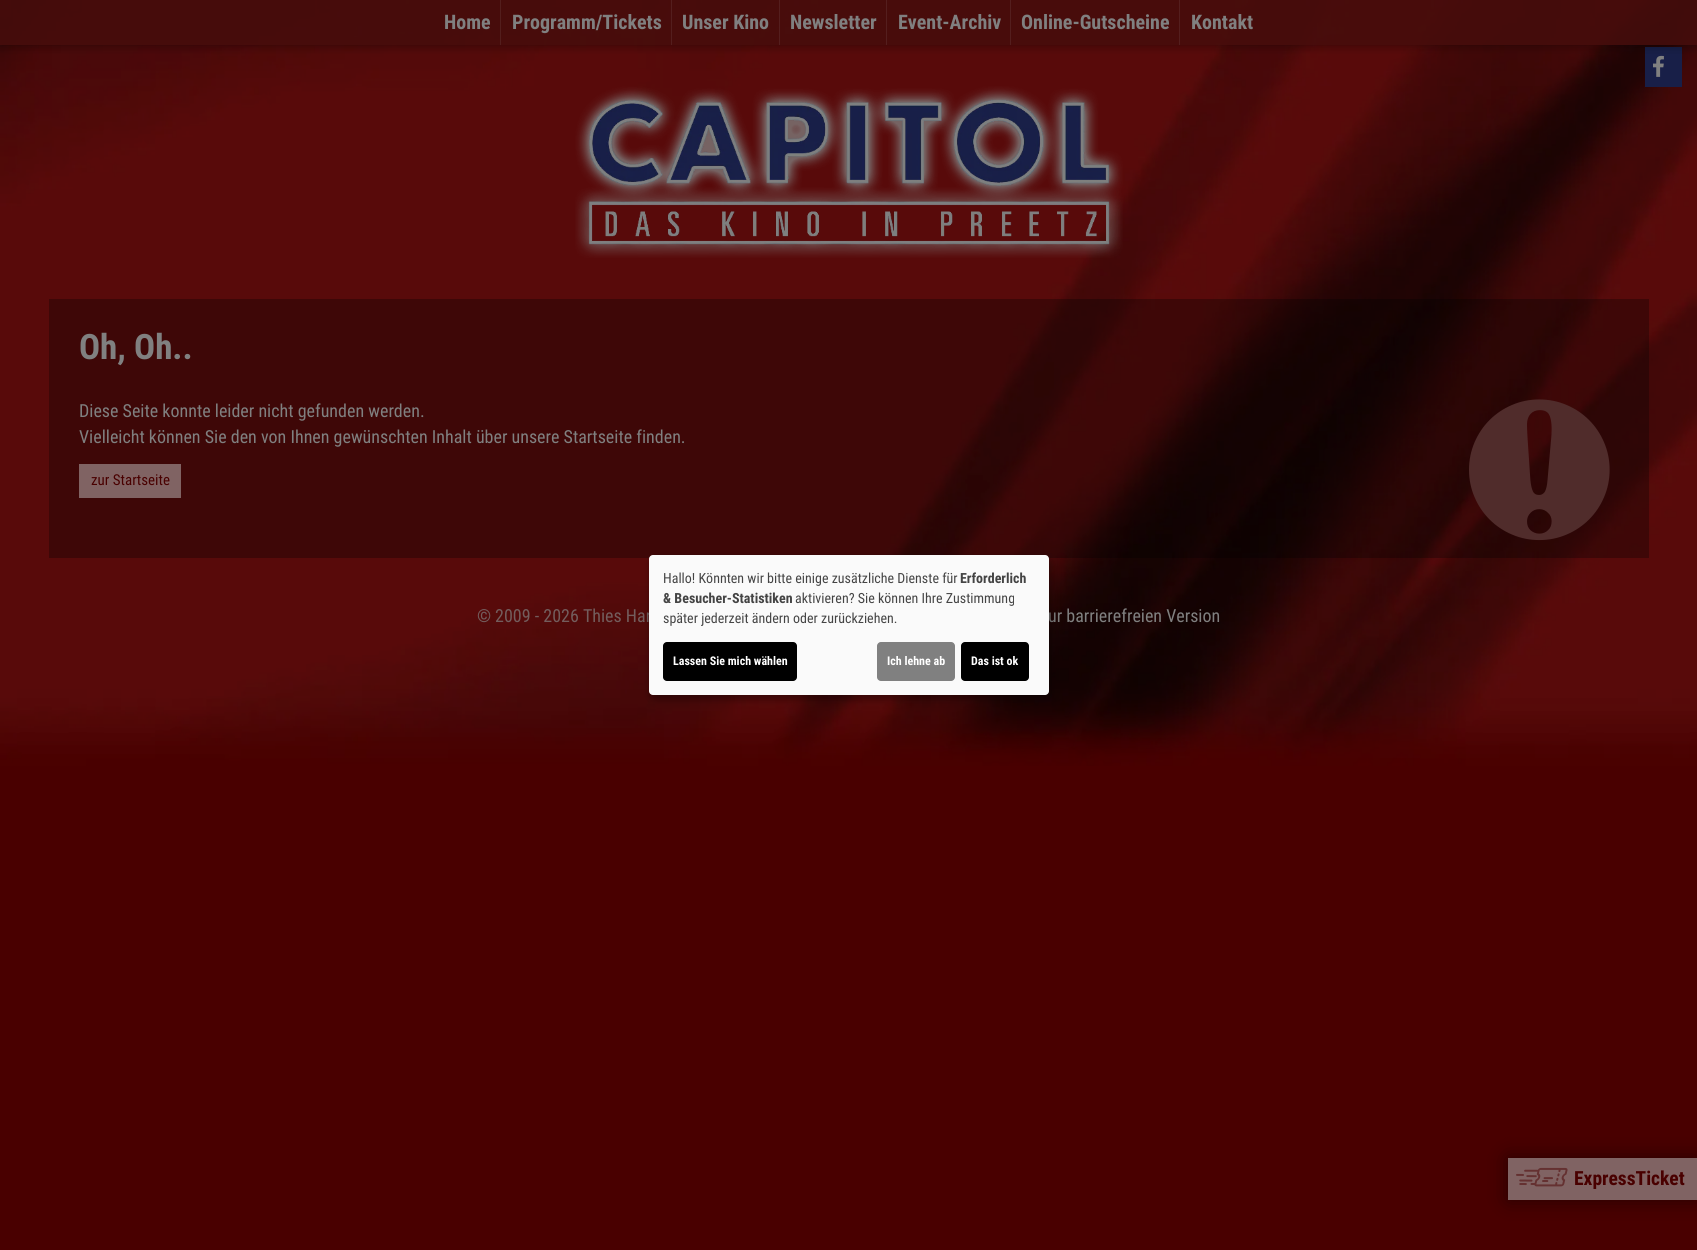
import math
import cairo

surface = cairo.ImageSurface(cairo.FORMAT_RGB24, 1697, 1250)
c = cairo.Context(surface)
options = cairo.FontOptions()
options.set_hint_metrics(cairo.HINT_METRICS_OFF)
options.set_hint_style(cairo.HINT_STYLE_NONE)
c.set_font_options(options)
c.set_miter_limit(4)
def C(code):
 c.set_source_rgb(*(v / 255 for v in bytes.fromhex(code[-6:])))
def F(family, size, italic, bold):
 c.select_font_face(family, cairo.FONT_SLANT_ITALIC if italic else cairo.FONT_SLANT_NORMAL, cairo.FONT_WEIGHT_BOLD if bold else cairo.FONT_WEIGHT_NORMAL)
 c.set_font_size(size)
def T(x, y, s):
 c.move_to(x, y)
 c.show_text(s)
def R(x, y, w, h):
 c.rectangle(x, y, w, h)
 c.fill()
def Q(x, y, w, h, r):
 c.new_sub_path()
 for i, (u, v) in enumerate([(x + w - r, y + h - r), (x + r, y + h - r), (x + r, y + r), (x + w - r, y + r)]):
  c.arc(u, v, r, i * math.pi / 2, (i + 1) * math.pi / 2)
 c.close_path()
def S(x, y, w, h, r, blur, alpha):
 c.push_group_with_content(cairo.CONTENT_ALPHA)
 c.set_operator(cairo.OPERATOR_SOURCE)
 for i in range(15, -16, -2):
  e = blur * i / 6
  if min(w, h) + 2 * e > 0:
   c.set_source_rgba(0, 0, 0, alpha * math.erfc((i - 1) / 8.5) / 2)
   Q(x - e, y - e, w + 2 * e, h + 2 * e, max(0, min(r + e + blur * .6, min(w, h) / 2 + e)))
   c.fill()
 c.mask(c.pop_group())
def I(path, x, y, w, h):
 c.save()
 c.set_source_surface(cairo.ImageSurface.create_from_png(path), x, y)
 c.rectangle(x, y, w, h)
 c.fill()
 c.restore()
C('490000')
c.paint()
I('1.png',0,0,1697,766)
C('181f48')
R(1645,47,37,40)
c.save()
c.rectangle(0,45,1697,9)
c.clip()
C('000000')
S(0,0,1697,45,0,5.5,.42)
c.restore()
c.set_source_rgba(0.275,0.051,0.047,0.85)
R(0,0,1697,45)
C('531e1d')
R(500,0,1,45)
F('Roboto Condensed',20,0,1)
C('808080')
T(444,29,'Home')
C('541e1e')
R(671,0,1,45)
C('808080')
T(512,29,'Programm/Tickets')
C('541e1e')
R(779,0,1,45)
C('808080')
T(682,29,'Unser Kino')
C('541e1e')
R(886,0,1,45)
C('808080')
T(790,29,'Newsletter')
C('541e1e')
R(1010,0,1,45)
C('808080')
T(898,29,'Event-Archiv')
C('541e1e')
R(1179,0,1,45)
C('808080')
T(1021,29,'Online-Gutscheine')
T(1191,29,'Kontakt')
F('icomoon',21,0,0)
T(1653,74,':')
I('2.png',575,86,548,172)
c.set_source_rgba(0,0,0,0.3)
R(49,299,1600,259)
F('Roboto Condensed',35,0,1)
C('808080')
T(79,359,'Oh, Oh..')
F('Roboto Condensed',18,0,0)
T(79,417,'Diese Seite konnte leider nicht gefunden werden.')
T(79,443,'Vielleicht können Sie den von Ihnen gewünschten Inhalt über unsere Startseite finden.')
F('icomoon',150,0,0)
C('502c2b')
T(1469,526,'=')
C('806363')
R(79,464,102,34)
F('Roboto Condensed',15,0,0)
C('490000')
T(91,485,'zur Startseite')
F('Roboto Condensed',18,0,0)
C('735d5d')
T(477,622,'©')
T(495,622,'2009 - 2026 Thies Har')
C('808080')
T(1048,622,'ur barrierefreien Version')
C('000000')
S(654,560,400,140,4,5,.19)
S(649,559,400,140,4,3,.2)
C('fafafa')
Q(649,555,400,140,4)
c.fill()
F('Roboto Condensed',14,0,0)
C('444444')
T(663,583,'Hallo! Könnten wir bitte einige zusätzliche Dienste für')
F('Roboto Condensed',14,0,1)
T(960,583,'Erforderlich')
T(663,603,'& Besucher-Statistiken')
F('Roboto Condensed',14,0,0)
T(795,603,'aktivieren? Sie können Ihre Zustimmung')
T(663,623,'später jederzeit ändern oder zurückziehen.')
C('000000')
Q(663,642,134,39,4)
c.fill()
F('Roboto Condensed',12,0,1)
C('ffffff')
T(673,665,'Lassen Sie mich wählen')
C('808080')
Q(877,642,78,39,4)
c.fill()
C('ffffff')
T(887,665,'Ich lehne ab')
C('000000')
Q(961,642,68,39,4)
c.fill()
C('ffffff')
T(971,665,'Das ist ok')
C('000000')
S(1508,1158,189,42,0,10,.5)
C('806363')
R(1508,1158,189,42)
I('3.png',1516,1167,52,20)
F('Roboto Condensed',19.5,0,1)
C('490000')
T(1574,1185,'ExpressTicket')
surface.write_to_png('o.png')
